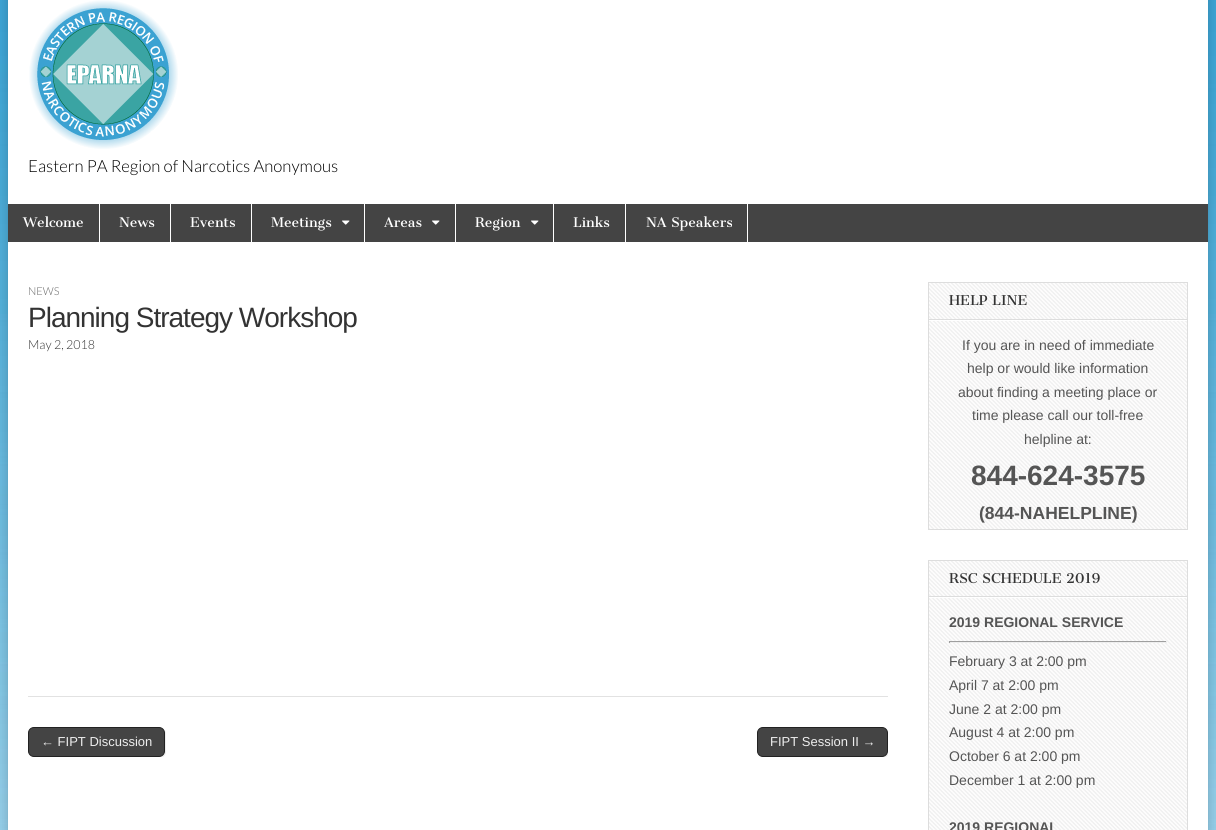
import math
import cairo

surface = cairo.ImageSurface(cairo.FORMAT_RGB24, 1216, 830)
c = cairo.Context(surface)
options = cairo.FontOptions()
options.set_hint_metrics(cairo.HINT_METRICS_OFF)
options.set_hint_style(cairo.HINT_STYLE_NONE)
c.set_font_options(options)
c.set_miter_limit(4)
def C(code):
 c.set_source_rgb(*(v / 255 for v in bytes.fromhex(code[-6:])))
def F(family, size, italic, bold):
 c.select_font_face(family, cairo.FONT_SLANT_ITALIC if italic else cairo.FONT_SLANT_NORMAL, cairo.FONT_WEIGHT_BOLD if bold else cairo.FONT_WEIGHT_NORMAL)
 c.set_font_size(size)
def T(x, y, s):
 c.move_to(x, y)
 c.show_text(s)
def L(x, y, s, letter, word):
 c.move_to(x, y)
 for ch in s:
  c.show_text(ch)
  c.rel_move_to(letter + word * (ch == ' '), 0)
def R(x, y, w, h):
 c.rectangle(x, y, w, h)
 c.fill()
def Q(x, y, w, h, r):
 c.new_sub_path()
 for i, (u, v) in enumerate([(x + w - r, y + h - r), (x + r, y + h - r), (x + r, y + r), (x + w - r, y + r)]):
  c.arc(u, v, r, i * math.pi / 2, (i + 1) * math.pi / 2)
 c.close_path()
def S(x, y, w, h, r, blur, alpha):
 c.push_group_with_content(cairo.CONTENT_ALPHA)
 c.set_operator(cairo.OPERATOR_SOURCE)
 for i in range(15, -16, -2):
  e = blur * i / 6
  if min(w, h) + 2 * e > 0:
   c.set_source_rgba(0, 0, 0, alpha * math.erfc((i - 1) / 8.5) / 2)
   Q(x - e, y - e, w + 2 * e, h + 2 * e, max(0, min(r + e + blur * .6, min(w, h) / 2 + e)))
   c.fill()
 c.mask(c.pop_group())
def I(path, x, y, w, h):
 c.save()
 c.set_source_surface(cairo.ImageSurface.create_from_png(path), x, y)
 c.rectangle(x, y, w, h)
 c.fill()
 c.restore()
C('ffffff')
c.paint()
I('1.png',0,0,1216,830)
C('000000')
S(8,-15,1200,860,0,5,.2)
C('ffffff')
R(8,0,1200,830)
I('2.png',29,0,149,149)
F('Lato Light',16.75,0,0)
C('000000')
T(28,172,'Eastern PA Region of Narcotics Anonymous')
C('444444')
R(8,204,1200,38)
C('ffffff')
R(99,204,1,38)
F('Cantata One',13,0,0)
T(23,227,'Welcome')
R(170,204,1,38)
T(119,227,'News')
R(251,204,1,38)
T(190,227,'Events')
R(364,204,1,38)
T(271,227,'Meetings')
I('3.png',342,220,8,5)
R(455,204,1,38)
T(384,227,'Areas')
I('3.png',432,220,8,5)
R(553,204,1,38)
T(475,227,'Region')
I('3.png',531,220,8,5)
R(625,204,1,38)
T(573,227,'Links')
R(747,204,1,38)
T(646,227,'NA Speakers')
C('e2e2e2')
R(28,696,860,1)
F('Lato Light',11,0,0)
C('666666')
T(28,295,'NEWS')
F('Liberation Sans',28,0,0)
C('333333')
L(28,327,'Planning Strategy Workshop',-1,0)
F('Lato Light',12.5,0,0)
T(28,349,'May 2, 2018')
c.save()
c.rectangle(28,727,860,30)
c.clip()
C('eeeeee')
c.new_path()
c.move_to(30,756)
c.curve_to(31,757,33,758,35,758)
c.line_to(160,758)
c.curve_to(163,758,166,755,166,752)
c.line_to(166,734)
c.curve_to(166,732,165,730,164,729)
c.curve_to(165,730,165,732,165,733)
c.line_to(165,751)
c.curve_to(165,754,162,757,159,757)
c.line_to(34,757)
c.curve_to(33,757,31,757,30,756)
c.close_path()
c.fill()
c.restore()
C('444444')
Q(28.5,727.5,136,29,5.5)
c.fill_preserve()
C('222222')
c.set_line_width(1)
c.stroke()
F('Liberation Sans',13,0,0)
C('eeeeee')
T(41,746,'← FIPT Discussion')
c.save()
c.rectangle(28,727,860,30)
c.clip()
c.new_path()
c.move_to(759,756)
c.curve_to(760,757,762,758,764,758)
c.line_to(883,758)
c.curve_to(886,758,889,755,889,752)
c.line_to(889,734)
c.curve_to(889,732,888,730,887,729)
c.curve_to(889,733,888,738,888,742)
c.line_to(888,752)
c.curve_to(886,762,863,757,862,757)
c.line_to(761,757)
c.close_path()
c.fill()
c.restore()
C('444444')
Q(757.5,727.5,130,29,5.5)
c.fill_preserve()
C('222222')
c.stroke()
C('eeeeee')
T(770,746,'FIPT Session II →')
I('4.png',929,283,258,246)
c.rectangle(928.5,282.5,259,247)
C('dddddd')
c.stroke()
C('ffffff')
R(929,320,258,1)
C('dddddd')
R(929,319,258,1)
F('Cantata One',13.25,0,0)
C('333333')
T(949,305,'HELP LINE')
F('Liberation Sans',14,0,0)
C('555555')
T(962,350,'If you are in need of immediate')
T(967,373,'help or would like information')
T(958,397,'about finding a meeting place or')
T(972,420,'time please call our toll-free')
T(1024,444,'helpline at:')
F('Liberation Sans',28,0,1)
T(971,485,'844-624-3575')
F('Liberation Sans',17.5,0,1)
T(979,519,'(844-NAHELPLINE)')
I('5.png',929,561,258,269)
c.rectangle(928.5,560.5,259,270)
C('dddddd')
c.stroke()
C('ffffff')
R(929,597,258,1)
C('dddddd')
R(929,596,258,1)
F('Cantata One',13.25,0,0)
C('333333')
T(949,583,'RSC SCHEDULE 2019')
F('Liberation Sans',14,0,1)
C('555555')
T(949,627,'2019 REGIONAL SERVICE')
C('9f9f9f')
R(949,641,218,1)
C('eeeeee')
R(1166,641,1,2)
R(949,642,218,1)
C('9f9f9f')
R(949,641,1,2)
F('Liberation Sans',14,0,0)
C('555555')
T(949,666,'February 3 at 2:00 pm')
T(949,690,'April 7 at 2:00 pm')
T(949,714,'June 2 at 2:00 pm')
T(949,737,'August 4 at 2:00 pm')
T(949,761,'October 6 at 2:00 pm')
T(949,785,'December 1 at 2:00 pm')
F('Liberation Sans',14,0,1)
T(949,832,'2019 REGIONAL')
surface.write_to_png('o.png')
